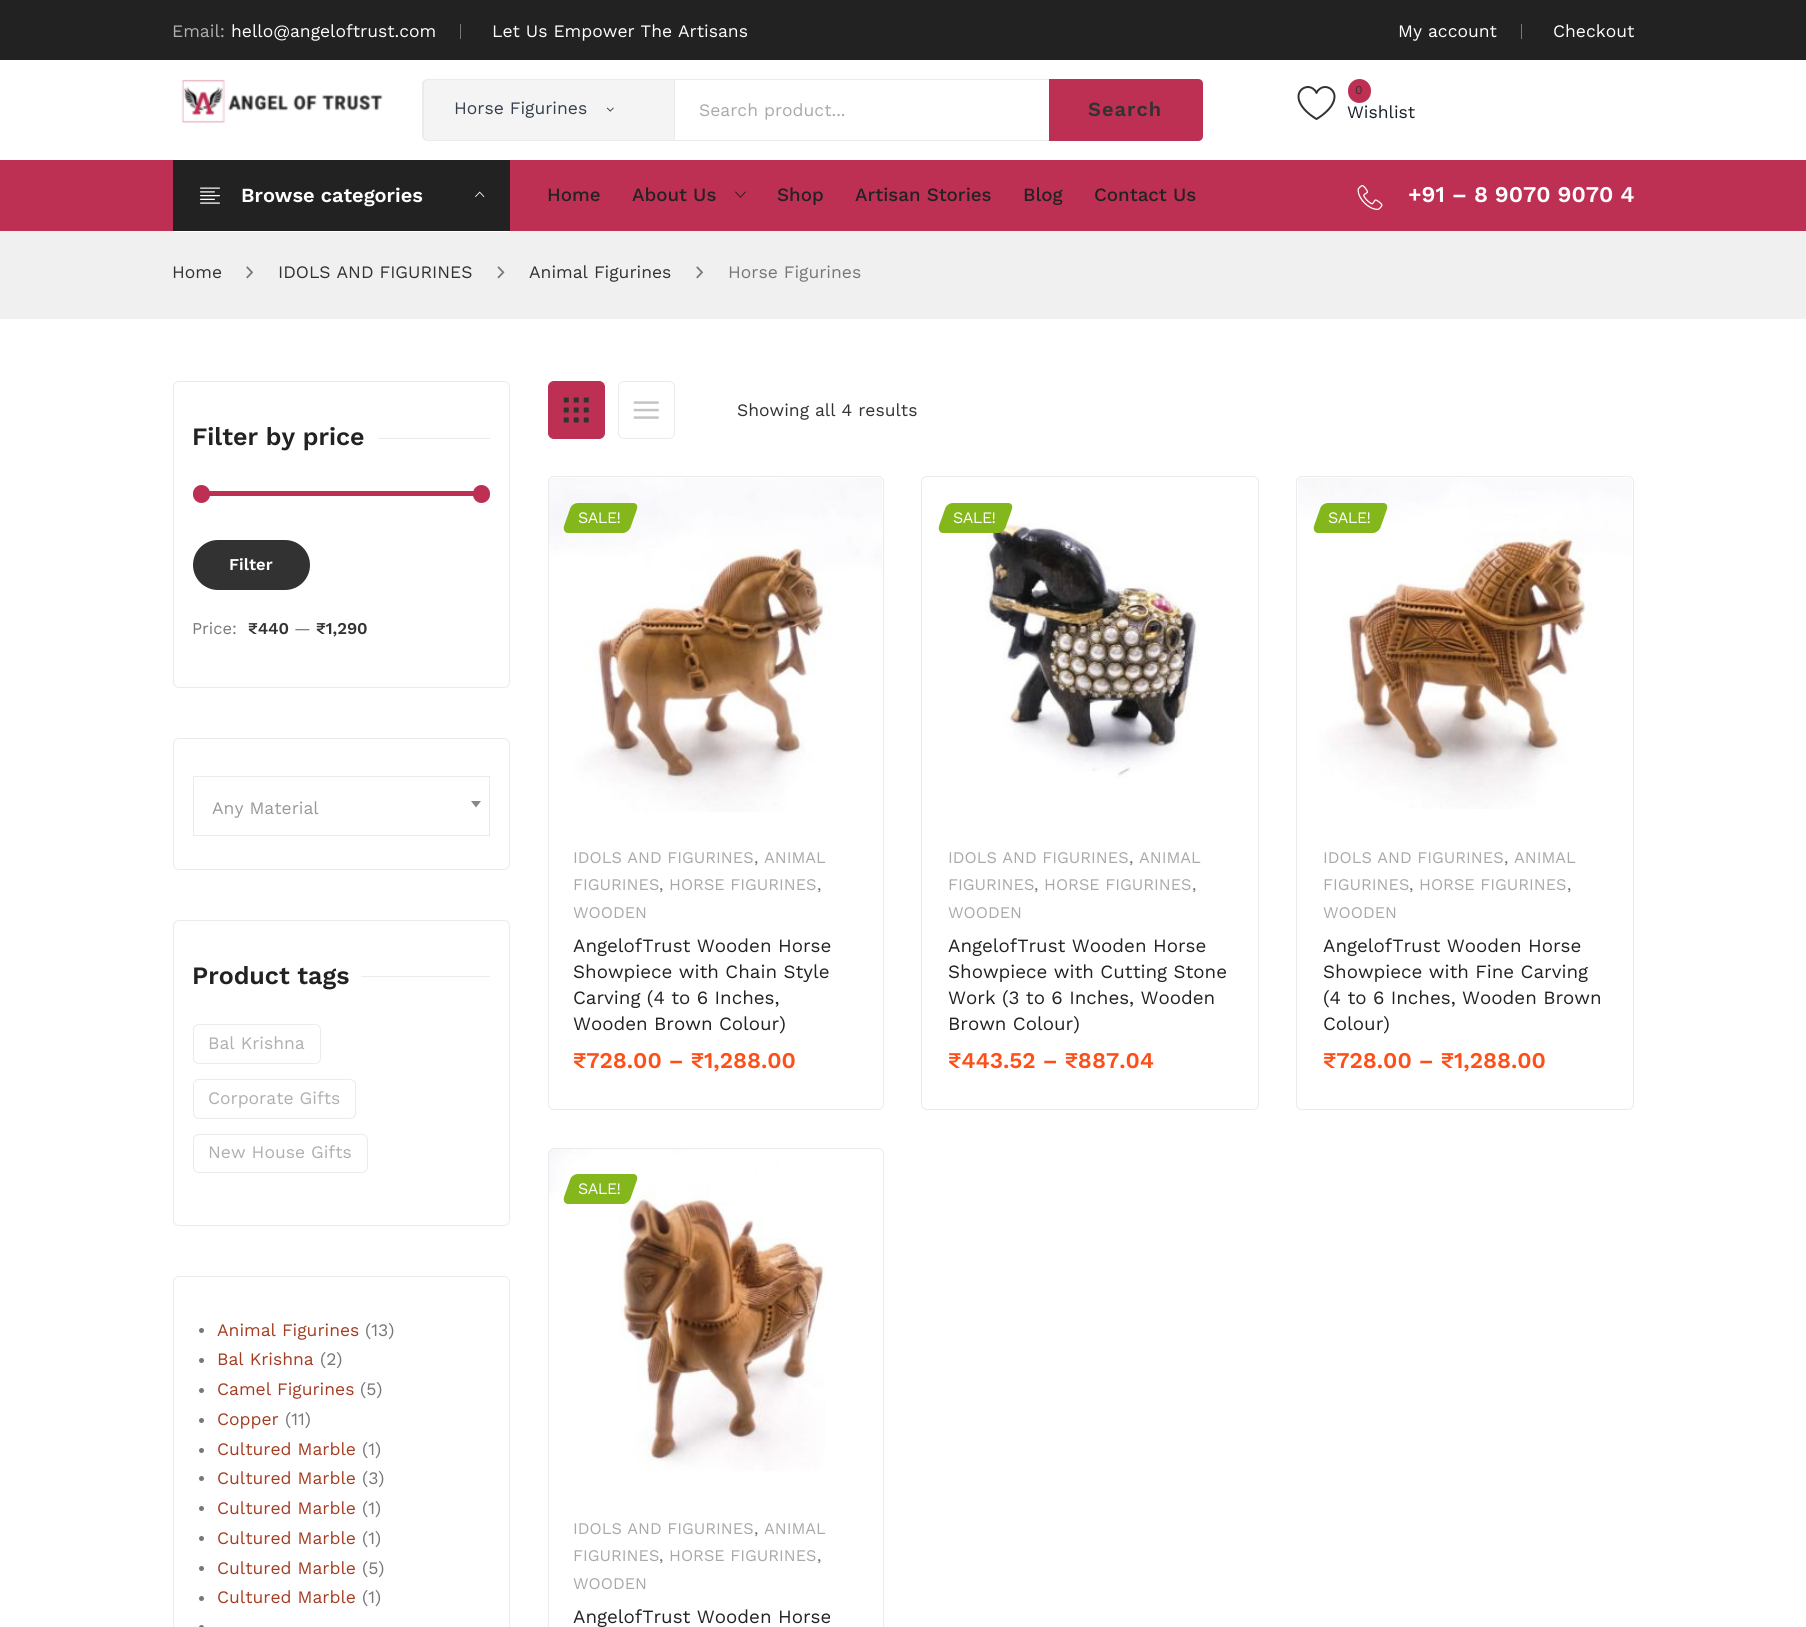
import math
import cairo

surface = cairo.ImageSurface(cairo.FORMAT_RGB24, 1806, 1627)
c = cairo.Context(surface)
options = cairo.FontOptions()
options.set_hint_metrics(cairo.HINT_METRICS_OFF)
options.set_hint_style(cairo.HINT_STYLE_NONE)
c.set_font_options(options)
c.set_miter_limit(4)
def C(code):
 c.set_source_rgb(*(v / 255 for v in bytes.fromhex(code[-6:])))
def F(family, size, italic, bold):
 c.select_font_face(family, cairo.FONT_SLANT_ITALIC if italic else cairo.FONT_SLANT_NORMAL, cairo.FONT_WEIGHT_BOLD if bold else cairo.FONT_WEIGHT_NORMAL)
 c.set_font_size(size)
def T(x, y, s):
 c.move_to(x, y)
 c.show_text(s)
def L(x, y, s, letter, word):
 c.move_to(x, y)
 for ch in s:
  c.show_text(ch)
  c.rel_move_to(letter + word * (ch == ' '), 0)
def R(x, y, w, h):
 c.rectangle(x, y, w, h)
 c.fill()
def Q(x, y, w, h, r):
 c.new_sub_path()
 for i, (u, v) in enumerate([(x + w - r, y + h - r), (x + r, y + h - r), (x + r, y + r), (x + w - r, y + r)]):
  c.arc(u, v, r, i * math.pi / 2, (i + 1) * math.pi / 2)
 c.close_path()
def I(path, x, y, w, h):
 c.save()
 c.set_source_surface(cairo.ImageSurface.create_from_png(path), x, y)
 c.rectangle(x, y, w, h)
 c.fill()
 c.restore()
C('ffffff')
c.paint()
C('222222')
R(0,0,1806,60)
F('Work Sans',17.5,0,0)
C('afafaf')
T(172,37,'Email:')
C('ffffff')
T(231,37,'hello@angeloftrust.com')
C('777777')
R(460,24,1,15)
C('ffffff')
T(492,37,'Let Us Empower The Artisans')
T(1398,37,'My account')
C('777777')
R(1521,24,1,15)
C('ffffff')
T(1553,37,'Checkout')
I('1.png',181,79,202,44)
C('f4f4f4')
c.new_path()
c.move_to(428,79)
c.line_to(674,79)
c.line_to(674,141)
c.line_to(428,141)
c.curve_to(425,141,423,139,423,136)
c.line_to(423,84)
c.curve_to(423,81,425,79,428,79)
c.close_path()
c.fill()
C('ebebeb')
c.set_fill_rule(cairo.FILL_RULE_EVEN_ODD)
c.new_path()
c.move_to(428,79)
c.line_to(674,79)
c.line_to(674,141)
c.line_to(428,141)
c.curve_to(425,141,422,139,422,136)
c.line_to(422,84)
c.curve_to(422,81,425,79,428,79)
c.close_path()
c.move_to(428,80)
c.line_to(674,80)
c.line_to(674,140)
c.line_to(428,140)
c.curve_to(425,140,424,138,424,136)
c.line_to(424,84)
c.curve_to(424,82,425,80,428,80)
c.close_path()
c.fill()
C('363f4d')
T(454,114,'Horse Figurines')
I('2.png',606,107,8,5)
C('ebebeb')
R(674,79,375,1)
R(674,140,375,1)
R(674,79,1,62)
C('a9a9a9')
T(699,116,'Search product...')
C('be2f54')
c.new_path()
c.move_to(1049,79)
c.line_to(1198,79)
c.curve_to(1201,79,1203,81,1203,84)
c.line_to(1203,136)
c.curve_to(1203,139,1201,141,1198,141)
c.line_to(1049,141)
c.close_path()
c.fill()
F('Work Sans SemiBold',20,0,0)
C('323232')
L(1088,116,'Search',1,0)
I('3.png',1297,86,39,34)
C('be2f54')
Q(1348,79,23,24,11.5)
c.fill()
F('Work Sans',12,0,0)
C('323232')
T(1355,94,'0')
F('Work Sans',17.5,0,0)
C('171e26')
T(1347,118,'Wishlist')
C('be2f54')
R(0,160,1806,71)
C('222222')
R(173,160,337,71)
I('4.png',200,187,20,17)
F('Work Sans SemiBold',20,0,0)
C('ffffff')
T(241,202,'Browse categories')
I('5.png',475,191,10,7)
C('f0f0f0')
R(0,231,1806,88)
C('ffffff')
R(173,231,337,1)
F('Work Sans Medium',18.75,0,0)
C('222222')
T(547,201,'Home')
T(632,201,'About Us')
I('6.png',735,191,11,7)
T(777,201,'Shop')
T(855,201,'Artisan Stories')
T(1023,201,'Blog')
T(1094,201,'Contact Us')
I('7.png',1357,185,26,25)
F('Work Sans SemiBold',22.5,0,0)
C('ffffff')
T(1408,202,'+91 – 8 9070 9070 4')
F('Work Sans',17.5,0,0)
C('323232')
T(172,278,'Home')
I('8.png',246,266,8,13)
T(278,278,'IDOLS AND FIGURINES')
I('9.png',497,266,8,13)
T(529,278,'Animal Figurines')
I('8.png',696,266,8,13)
C('777777')
T(728,278,'Horse Figurines')
Q(173.5,381.5,336,306,5.5)
C('ebebeb')
c.set_line_width(1)
c.stroke()
F('Work Sans SemiBold',25,0,0)
C('222222')
T(192,445,'Filter by price')
C('ebebeb')
R(378,438,112,1)
C('be2f54')
Q(193,491,297,5,2.5)
c.fill()
Q(193,485,17,18,8.5)
c.fill()
Q(473,485,17,18,8.5)
c.fill()
C('323232')
Q(193,540,117,50,25)
c.fill()
F('Work Sans SemiBold',16.5,0,0)
C('ffffff')
T(229,570,'Filter')
F('Work Sans',16.5,0,0)
C('777777')
T(192,634,'Price:')
F('Work Sans SemiBold',16.5,0,0)
C('323232')
T(248,634,'₹440')
F('Work Sans',16.5,0,0)
C('777777')
T(294,634,'—')
F('Work Sans SemiBold',16.5,0,0)
C('323232')
T(316,634,'₹1,290')
Q(173.5,738.5,336,131,5.5)
C('ebebeb')
c.stroke()
c.rectangle(193.5,776.5,296,59)
c.stroke()
F('Work Sans',17.5,0,0)
C('999999')
T(212,814,'Any Material')
C('888888')
c.set_fill_rule(cairo.FILL_RULE_WINDING)
c.new_path()
c.move_to(471,801)
c.line_to(481,801)
c.line_to(476,807.5)
c.close_path()
c.fill()
Q(173.5,920.5,336,305,5.5)
C('ebebeb')
c.stroke()
F('Work Sans SemiBold',25,0,0)
C('222222')
T(192,984,'Product tags')
C('ebebeb')
R(361,976,129,1)
Q(193.5,1024.5,127,39,5.5)
c.stroke()
F('Work Sans',17.5,0,0)
C('afafaf')
T(208,1049,'Bal Krishna')
Q(193.5,1079.5,162,39,5.5)
C('ebebeb')
c.stroke()
C('afafaf')
T(208,1104,'Corporate Gifts')
Q(193.5,1134.5,174,38,5.5)
C('ebebeb')
c.stroke()
C('afafaf')
T(208,1158,'New House Gifts')
Q(173.5,1276.5,336,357,5.5)
C('ebebeb')
c.stroke()
C('777777')
c.arc(201.5,1330.5,2.5,0,2 * math.pi)
c.fill()
C('a43d21')
T(217,1336,'Animal Figurines')
C('777777')
T(365,1336,'(13)')
c.new_path()
c.arc(201.5,1360.5,2.5,0,2 * math.pi)
c.fill()
C('a43d21')
T(217,1365,'Bal Krishna')
C('777777')
T(320,1365,'(2)')
c.new_path()
c.arc(201.5,1390.5,2.5,0,2 * math.pi)
c.fill()
C('a43d21')
T(217,1395,'Camel Figurines')
C('777777')
T(360,1395,'(5)')
c.new_path()
c.arc(201.5,1420.5,2.5,0,2 * math.pi)
c.fill()
C('a43d21')
T(217,1425,'Copper')
C('777777')
T(285,1425,'(11)')
c.new_path()
c.arc(201.5,1450.5,2.5,0,2 * math.pi)
c.fill()
C('a43d21')
T(217,1455,'Cultured Marble')
C('777777')
T(362,1455,'(1)')
c.new_path()
c.arc(201.5,1478.5,2.5,0,2 * math.pi)
c.fill()
C('a43d21')
T(217,1484,'Cultured Marble')
C('777777')
T(362,1484,'(3)')
c.new_path()
c.arc(201.5,1508.5,2.5,0,2 * math.pi)
c.fill()
C('a43d21')
T(217,1514,'Cultured Marble')
C('777777')
T(362,1514,'(1)')
c.new_path()
c.arc(201.5,1538.5,2.5,0,2 * math.pi)
c.fill()
C('a43d21')
T(217,1544,'Cultured Marble')
C('777777')
T(362,1544,'(1)')
c.new_path()
c.arc(201.5,1568.5,2.5,0,2 * math.pi)
c.fill()
C('a43d21')
T(217,1574,'Cultured Marble')
C('777777')
T(362,1574,'(5)')
c.new_path()
c.arc(201.5,1598.5,2.5,0,2 * math.pi)
c.fill()
C('a43d21')
T(217,1603,'Cultured Marble')
C('777777')
T(362,1603,'(1)')
c.new_path()
c.arc(201.5,1627.5,2.5,0,2 * math.pi)
c.fill()
C('be2f54')
Q(548.5,381.5,56,57,5.5)
c.fill_preserve()
c.stroke()
I('10.png',563,397,26,26)
Q(618.5,381.5,56,57,5.5)
C('ebebeb')
c.stroke()
I('11.png',633,401,26,18)
C('323232')
T(737,416,'Showing all 4 results')
Q(548.5,476.5,335,633,5.5)
C('ebebeb')
c.stroke()
I('12.png',549,478,333,334)
C('83b71c')
c.new_path()
c.move_to(578,503)
c.line_to(633,503)
c.curve_to(636,503,638,505,637,509)
c.line_to(631,526)
c.curve_to(630,530,626,533,623,533)
c.line_to(568,533)
c.curve_to(565,533,563,530,564,526)
c.line_to(570,509)
c.curve_to(571,505,575,503,578,503)
c.close_path()
c.fill()
F('Work Sans',16,0,0)
C('ffffff')
L(578,523,'SALE!',-.5,0)
F('Work Sans',16.25,0,0)
C('a9a9a9')
T(573,863,'IDOLS AND FIGURINES')
T(764,863,'ANIMAL')
C('777777')
T(754,863,',')
C('a9a9a9')
T(573,890,'FIGURINES')
C('777777')
T(659,890,',')
C('a9a9a9')
T(669,890,'HORSE FIGURINES')
C('777777')
T(817,890,',')
C('a9a9a9')
T(573,918,'WOODEN')
F('Work Sans',18.75,0,0)
C('222222')
T(573,952,'AngelofTrust Wooden Horse')
T(573,978,'Showpiece with Chain Style')
T(573,1004,'Carving (4 to 6 Inches,')
T(573,1030,'Wooden Brown Colour)')
F('Work Sans SemiBold',22.5,0,0)
C('fe4f19')
T(573,1068,'₹728.00 – ₹1,288.00')
Q(921.5,476.5,337,633,5.5)
C('ebebeb')
c.stroke()
I('13.png',985,522,214,257)
C('83b71c')
c.new_path()
c.move_to(953,503)
c.line_to(1008,503)
c.curve_to(1011,503,1013,505,1012,509)
c.line_to(1006,526)
c.curve_to(1005,530,1001,533,998,533)
c.line_to(943,533)
c.curve_to(940,533,938,530,939,526)
c.line_to(945,509)
c.curve_to(946,505,950,503,953,503)
c.close_path()
c.fill()
F('Work Sans',16,0,0)
C('ffffff')
L(953,523,'SALE!',-.5,0)
F('Work Sans',16.25,0,0)
C('a9a9a9')
T(948,863,'IDOLS AND FIGURINES')
T(1139,863,'ANIMAL')
C('777777')
T(1129,863,',')
C('a9a9a9')
T(948,890,'FIGURINES')
C('777777')
T(1034,890,',')
C('a9a9a9')
T(1044,890,'HORSE FIGURINES')
C('777777')
T(1192,890,',')
C('a9a9a9')
T(948,918,'WOODEN')
F('Work Sans',18.75,0,0)
C('222222')
T(948,952,'AngelofTrust Wooden Horse')
T(948,978,'Showpiece with Cutting Stone')
T(948,1004,'Work (3 to 6 Inches, Wooden')
T(948,1030,'Brown Colour)')
F('Work Sans SemiBold',22.5,0,0)
C('fe4f19')
T(948,1068,'₹443.52 – ₹887.04')
Q(1296.5,476.5,337,633,5.5)
C('ebebeb')
c.stroke()
I('14.png',1298,478,334,331)
C('83b71c')
c.new_path()
c.move_to(1328,503)
c.line_to(1383,503)
c.curve_to(1386,503,1388,505,1387,509)
c.line_to(1381,526)
c.curve_to(1380,530,1376,533,1373,533)
c.line_to(1318,533)
c.curve_to(1315,533,1313,530,1314,526)
c.line_to(1320,509)
c.curve_to(1321,505,1325,503,1328,503)
c.close_path()
c.fill()
F('Work Sans',16,0,0)
C('ffffff')
L(1328,523,'SALE!',-.5,0)
F('Work Sans',16.25,0,0)
C('a9a9a9')
T(1323,863,'IDOLS AND FIGURINES')
T(1514,863,'ANIMAL')
C('777777')
T(1504,863,',')
C('a9a9a9')
T(1323,890,'FIGURINES')
C('777777')
T(1409,890,',')
C('a9a9a9')
T(1419,890,'HORSE FIGURINES')
C('777777')
T(1567,890,',')
C('a9a9a9')
T(1323,918,'WOODEN')
F('Work Sans',18.75,0,0)
C('222222')
T(1323,952,'AngelofTrust Wooden Horse')
T(1323,978,'Showpiece with Fine Carving')
T(1323,1004,'(4 to 6 Inches, Wooden Brown')
T(1323,1030,'Colour)')
F('Work Sans SemiBold',22.5,0,0)
C('fe4f19')
T(1323,1068,'₹728.00 – ₹1,288.00')
Q(548.5,1148.5,335,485,5.5)
C('ebebeb')
c.stroke()
I('15.png',549,1149,276,322)
C('83b71c')
c.new_path()
c.move_to(578,1174)
c.line_to(633,1174)
c.curve_to(636,1174,638,1176,637,1180)
c.line_to(631,1197)
c.curve_to(630,1201,626,1204,623,1204)
c.line_to(568,1204)
c.curve_to(565,1204,563,1201,564,1197)
c.line_to(570,1180)
c.curve_to(571,1176,575,1174,578,1174)
c.close_path()
c.fill()
F('Work Sans',16,0,0)
C('ffffff')
L(578,1194,'SALE!',-.5,0)
F('Work Sans',16.25,0,0)
C('a9a9a9')
T(573,1534,'IDOLS AND FIGURINES')
T(764,1534,'ANIMAL')
C('777777')
T(754,1534,',')
C('a9a9a9')
T(573,1561,'FIGURINES')
C('777777')
T(659,1561,',')
C('a9a9a9')
T(669,1561,'HORSE FIGURINES')
C('777777')
T(817,1561,',')
C('a9a9a9')
T(573,1589,'WOODEN')
F('Work Sans',18.75,0,0)
C('222222')
T(573,1623,'AngelofTrust Wooden Horse')
surface.write_to_png('o.png')
